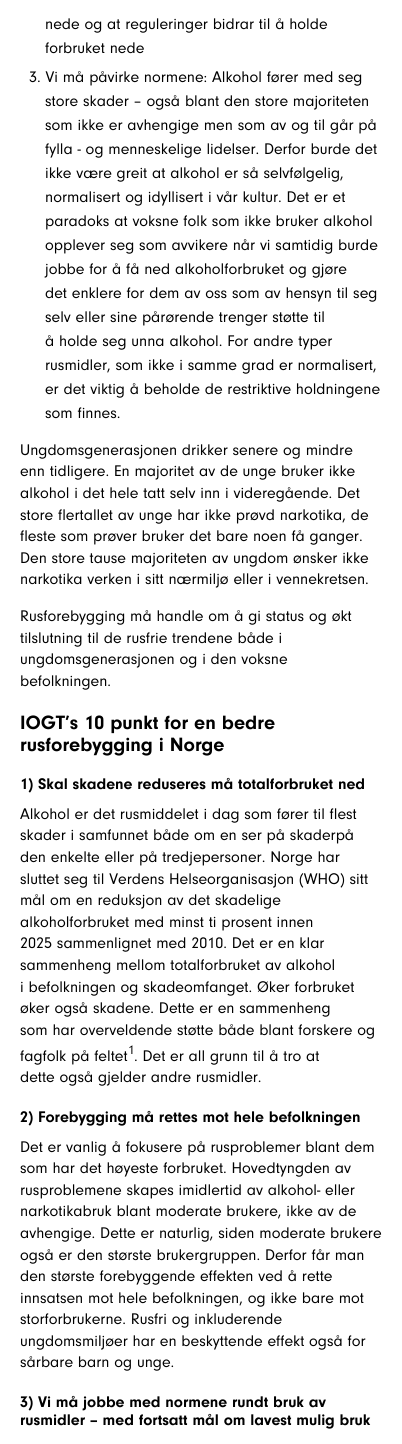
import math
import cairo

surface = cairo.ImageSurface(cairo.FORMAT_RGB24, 402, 1444)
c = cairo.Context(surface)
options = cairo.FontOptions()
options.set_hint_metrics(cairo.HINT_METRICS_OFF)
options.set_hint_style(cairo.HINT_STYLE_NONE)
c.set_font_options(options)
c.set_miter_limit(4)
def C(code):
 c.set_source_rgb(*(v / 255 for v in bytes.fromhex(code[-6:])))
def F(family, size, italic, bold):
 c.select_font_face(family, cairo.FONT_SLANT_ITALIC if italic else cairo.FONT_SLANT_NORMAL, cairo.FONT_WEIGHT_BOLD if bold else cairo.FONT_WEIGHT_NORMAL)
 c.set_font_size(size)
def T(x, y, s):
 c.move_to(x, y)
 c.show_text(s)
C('ffffff')
c.paint()
F('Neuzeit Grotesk',16,0,0)
C('000000')
T(45,29,'nede og at reguleringer bidrar til å holde')
T(45,53,'forbruket nede')
T(29,82,'3. Vi må påvirke normene: Alkohol fører med seg')
T(45,106,'store skader – også blant den store majoriteten')
T(45,130,'som ikke er avhengige men som av og til går på')
T(45,154,'fylla - og menneskelige lidelser. Derfor burde det')
T(45,178,'ikke være greit at alkohol er så selvfølgelig,')
T(45,202,'normalisert og idyllisert i vår kultur. Det er et')
T(45,226,'paradoks at voksne folk som ikke bruker alkohol')
T(45,250,'opplever seg som avvikere når vi samtidig burde')
T(45,274,'jobbe for å få ned alkoholforbruket og gjøre')
T(45,298,'det enklere for dem av oss som av hensyn til seg')
T(45,322,'selv eller sine pårørende trenger støtte til')
T(45,346,'å holde seg unna alkohol. For andre typer')
T(45,370,'rusmidler, som ikke i samme grad er normalisert,')
T(45,394,'er det viktig å beholde de restriktive holdningene')
T(45,418,'som finnes.')
T(20,455,'Ungdomsgenerasjonen drikker senere og mindre')
T(20,476,'enn tidligere. En majoritet av de unge bruker ikke')
T(20,498,'alkohol i det hele tatt selv inn i videregående. Det')
T(20,520,'store flertallet av unge har ikke prøvd narkotika, de')
T(20,541,'fleste som prøver bruker det bare noen få ganger.')
T(20,563,'Den store tause majoriteten av ungdom ønsker ikke')
T(20,584,'narkotika verken i sitt nærmiljø eller i vennekretsen.')
T(20,621,'Rusforebygging må handle om å gi status og økt')
T(20,643,'tilslutning til de rusfrie trendene både i')
T(20,664,'ungdomsgenerasjonen og i den voksne')
T(20,686,'befolkningen.')
F('Neuzeit Grotesk',20,0,1)
T(20,729,'IOGT’s 10 punkt for en bedre')
T(20,751,'rusforebygging i Norge')
F('Neuzeit Grotesk',16,0,1)
T(20,789,'1) Skal skadene reduseres må totalforbruket ned')
F('Neuzeit Grotesk',16,0,0)
T(20,819,'Alkohol er det rusmiddelet i dag som fører til flest')
T(20,840,'skader i samfunnet både om en ser på skaderpå')
T(20,862,'den enkelte eller på tredjepersoner. Norge har')
T(20,884,'sluttet seg til Verdens Helseorganisasjon (WHO) sitt')
T(20,905,'mål om en reduksjon av det skadelige')
T(20,927,'alkoholforbruket med minst ti prosent innen')
T(20,948,'2025 sammenlignet med 2010. Det er en klar')
T(20,970,'sammenheng mellom totalforbruket av alkohol')
T(20,992,'i befolkningen og skadeomfanget. Øker forbruket')
T(20,1013,'øker også skadene. Dette er en sammenheng')
T(20,1035,'som har overveldende støtte både blant forskere og')
T(20,1061,'fagfolk på feltet')
F('Neuzeit Grotesk',13,0,0)
T(128,1054,'1')
F('Neuzeit Grotesk',16,0,0)
T(134,1061,'. Det er all grunn til å tro at')
T(20,1082,'dette også gjelder andre rusmidler.')
F('Neuzeit Grotesk',16,0,1)
T(20,1122,'2) Forebygging må rettes mot hele befolkningen')
F('Neuzeit Grotesk',16,0,0)
T(20,1152,'Det er vanlig å fokusere på rusproblemer blant dem')
T(20,1173,'som har det høyeste forbruket. Hovedtyngden av')
T(20,1195,'rusproblemene skapes imidlertid av alkohol- eller')
T(20,1216,'narkotikabruk blant moderate brukere, ikke av de')
T(20,1238,'avhengige. Dette er naturlig, siden moderate brukere')
T(20,1260,'også er den største brukergruppen. Derfor får man')
T(20,1281,'den største forebyggende effekten ved å rette')
T(20,1303,'innsatsen mot hele befolkningen, og ikke bare mot')
T(20,1324,'storforbrukerne. Rusfri og inkluderende')
T(20,1346,'ungdomsmiljøer har en beskyttende effekt også for')
T(20,1367,'sårbare barn og unge.')
F('Neuzeit Grotesk',16,0,1)
T(20,1407,'3) Vi må jobbe med normene rundt bruk av')
T(20,1425,'rusmidler – med fortsatt mål om lavest mulig bruk')
surface.write_to_png('o.png')
